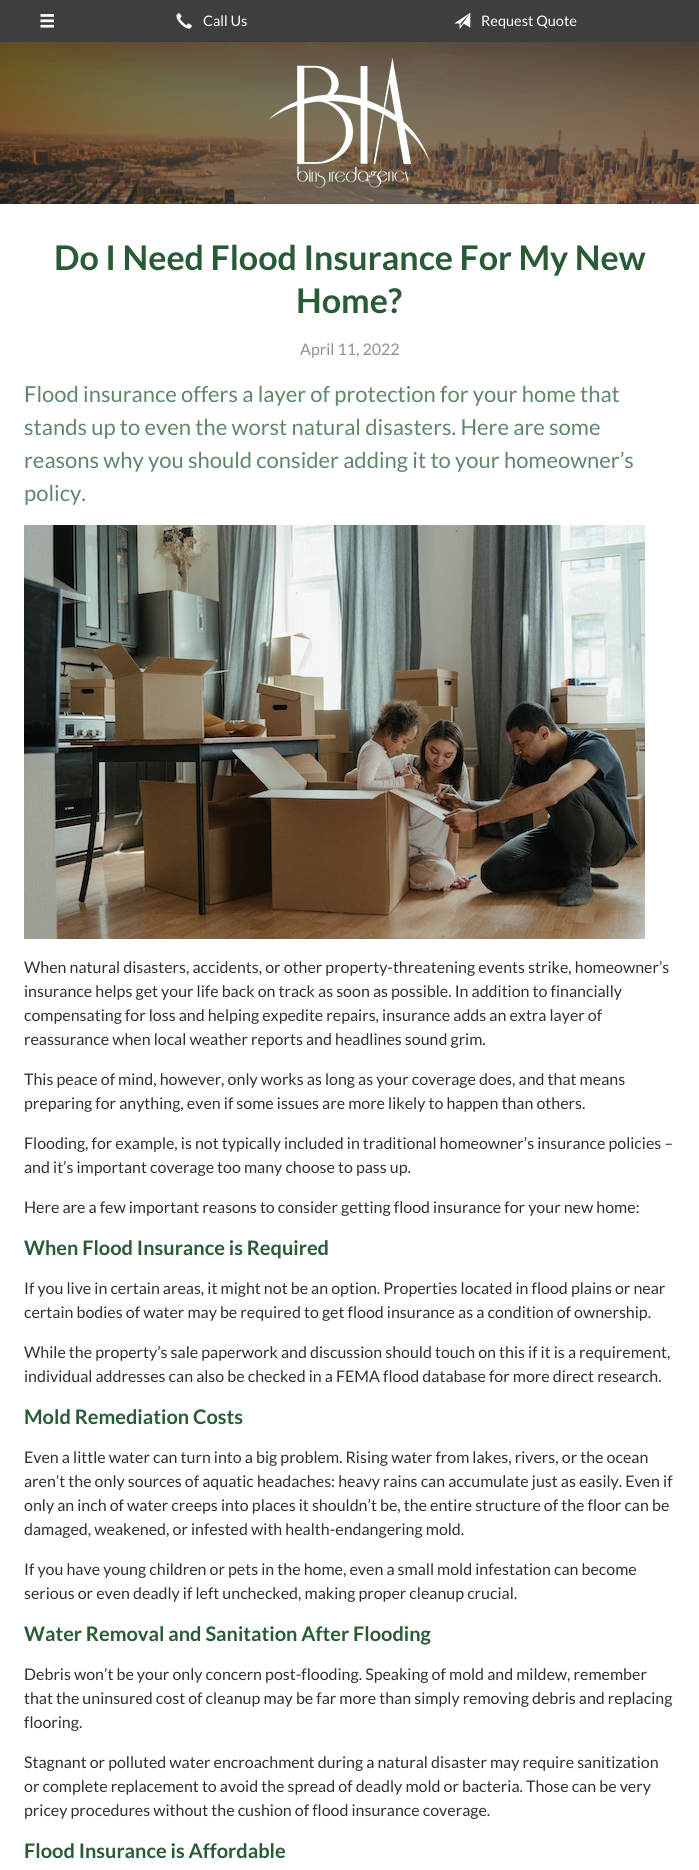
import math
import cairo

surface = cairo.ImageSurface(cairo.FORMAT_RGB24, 699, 1870)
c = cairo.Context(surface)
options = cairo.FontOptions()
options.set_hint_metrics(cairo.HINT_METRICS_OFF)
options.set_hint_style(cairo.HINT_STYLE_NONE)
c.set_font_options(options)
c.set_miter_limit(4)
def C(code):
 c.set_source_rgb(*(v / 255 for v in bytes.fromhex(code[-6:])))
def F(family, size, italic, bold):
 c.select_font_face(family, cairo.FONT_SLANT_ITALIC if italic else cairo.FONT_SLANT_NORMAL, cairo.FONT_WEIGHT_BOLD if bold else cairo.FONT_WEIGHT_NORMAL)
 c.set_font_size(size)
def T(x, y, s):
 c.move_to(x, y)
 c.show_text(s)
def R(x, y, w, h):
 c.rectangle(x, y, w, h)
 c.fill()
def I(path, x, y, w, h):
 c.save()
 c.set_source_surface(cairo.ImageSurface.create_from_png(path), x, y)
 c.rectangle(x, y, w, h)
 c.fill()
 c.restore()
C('3e3e3e')
c.paint()
I('1.png',40,14,14,14)
I('2.png',176,13,16,16)
F('Lato',14.5,0,0)
C('ffffff')
T(203,26,'Call Us')
I('3.png',454,12,17,17)
T(481,26,'Request Quote')
I('4.png',0,42,699,162)
I('5.png',269,58,161,130)
R(0,204,699,1666)
F('Lato',34,0,1)
C('295b36')
T(54,270,'Do I Need Flood Insurance For My New')
T(296,313,'Home?')
F('Lato',16,0,0)
C('909090')
T(300,355,'April 11, 2022')
F('Lato',22,0,0)
C('5f876a')
T(24,402,'Flood insurance offers a layer of protection for your home that')
T(24,435,'stands up to even the worst natural disasters. Here are some')
T(24,468,'reasons why you should consider adding it to your homeowner’s')
T(24,501,'policy.')
I('6.png',24,525,621,414)
F('Lato',16,0,0)
C('303030')
T(24,973,'When natural disasters, accidents, or other property-threatening events strike, homeowner’s')
T(24,997,'insurance helps get your life back on track as soon as possible. In addition to financially')
T(24,1021,'compensating for loss and helping expedite repairs, insurance adds an extra layer of')
T(24,1045,'reassurance when local weather reports and headlines sound grim.')
T(24,1085,'This peace of mind, however, only works as long as your coverage does, and that means')
T(24,1109,'preparing for anything, even if some issues are more likely to happen than others.')
T(24,1149,'Flooding, for example, is not typically included in traditional homeowner’s insurance policies –')
T(24,1173,'and it’s important coverage too many choose to pass up.')
T(24,1213,'Here are a few important reasons to consider getting flood insurance for your new home:')
F('Lato',20,0,1)
C('295b36')
T(24,1255,'When Flood Insurance is Required')
F('Lato',16,0,0)
C('303030')
T(24,1294,'If you live in certain areas, it might not be an option. Properties located in flood plains or near')
T(24,1318,'certain bodies of water may be required to get flood insurance as a condition of ownership.')
T(24,1358,'While the property’s sale paperwork and discussion should touch on this if it is a requirement,')
T(24,1382,'individual addresses can also be checked in a FEMA flood database for more direct research.')
F('Lato',20,0,1)
C('295b36')
T(24,1424,'Mold Remediation Costs')
F('Lato',16,0,0)
C('303030')
T(24,1463,'Even a little water can turn into a big problem. Rising water from lakes, rivers, or the ocean')
T(24,1487,'aren’t the only sources of aquatic headaches: heavy rains can accumulate just as easily. Even if')
T(24,1511,'only an inch of water creeps into places it shouldn’t be, the entire structure of the floor can be')
T(24,1535,'damaged, weakened, or infested with health-endangering mold.')
T(24,1575,'If you have young children or pets in the home, even a small mold infestation can become')
T(24,1599,'serious or even deadly if left unchecked, making proper cleanup crucial.')
F('Lato',20,0,1)
C('295b36')
T(24,1641,'Water Removal and Sanitation After Flooding')
F('Lato',16,0,0)
C('303030')
T(24,1680,'Debris won’t be your only concern post-flooding. Speaking of mold and mildew, remember')
T(24,1704,'that the uninsured cost of cleanup may be far more than simply removing debris and replacing')
T(24,1728,'flooring.')
T(24,1768,'Stagnant or polluted water encroachment during a natural disaster may require sanitization')
T(24,1792,'or complete replacement to avoid the spread of deadly mold or bacteria. Those can be very')
T(24,1816,'pricey procedures without the cushion of flood insurance coverage.')
F('Lato',20,0,1)
C('295b36')
T(24,1858,'Flood Insurance is Affordable')
surface.write_to_png('o.png')
